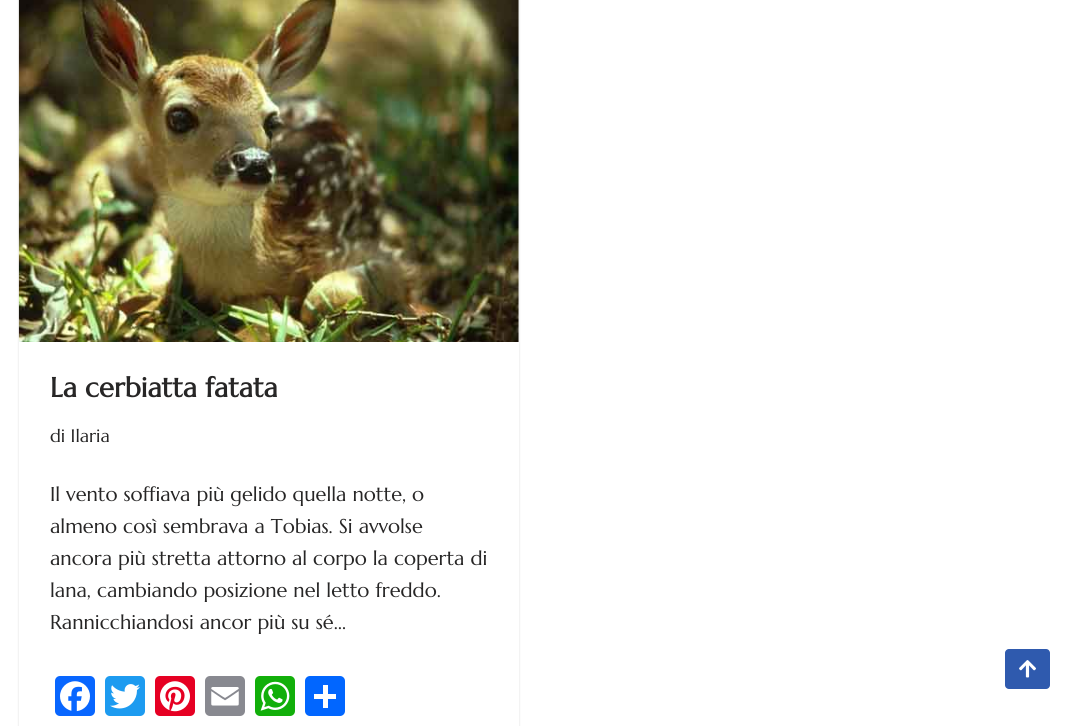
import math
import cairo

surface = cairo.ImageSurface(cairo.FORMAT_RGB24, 1074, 726)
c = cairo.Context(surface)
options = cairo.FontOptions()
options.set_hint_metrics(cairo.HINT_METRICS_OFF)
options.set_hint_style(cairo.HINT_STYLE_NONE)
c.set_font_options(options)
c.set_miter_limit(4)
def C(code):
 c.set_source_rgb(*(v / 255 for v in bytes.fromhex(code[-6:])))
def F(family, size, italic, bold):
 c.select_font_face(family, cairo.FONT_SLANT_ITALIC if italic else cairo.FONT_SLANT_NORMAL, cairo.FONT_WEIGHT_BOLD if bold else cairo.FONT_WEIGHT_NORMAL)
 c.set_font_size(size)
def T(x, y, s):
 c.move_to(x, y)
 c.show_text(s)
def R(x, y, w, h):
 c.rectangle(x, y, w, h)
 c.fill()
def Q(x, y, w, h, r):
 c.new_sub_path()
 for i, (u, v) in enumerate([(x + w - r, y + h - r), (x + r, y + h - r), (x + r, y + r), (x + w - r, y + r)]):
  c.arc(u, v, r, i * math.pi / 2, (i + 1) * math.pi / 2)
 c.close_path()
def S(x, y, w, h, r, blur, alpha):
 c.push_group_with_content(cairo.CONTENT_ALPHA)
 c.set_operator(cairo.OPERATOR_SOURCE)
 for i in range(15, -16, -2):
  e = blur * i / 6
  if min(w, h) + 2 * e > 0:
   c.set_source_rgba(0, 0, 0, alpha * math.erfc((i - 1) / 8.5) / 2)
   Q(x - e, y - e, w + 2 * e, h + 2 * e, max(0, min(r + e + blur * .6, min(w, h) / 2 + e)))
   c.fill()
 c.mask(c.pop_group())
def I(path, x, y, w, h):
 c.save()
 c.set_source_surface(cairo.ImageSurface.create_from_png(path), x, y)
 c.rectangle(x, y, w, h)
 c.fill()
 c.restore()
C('ffffff')
c.paint()
C('000000')
S(19,-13,500,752,10,1,.15)
C('ffffff')
R(19,0,500,726)
I('1.png',18,0,501,342)
F('Marcellus',27.5,0,1)
C('272626')
T(50,397,'La cerbiatta fatata')
F('Marcellus',18,0,0)
T(50,442,'di Ilaria')
F('Marcellus',20,0,0)
T(50,501,'Il vento soffiava più gelido quella notte, o')
T(50,533,'almeno così sembrava a Tobias. Si avvolse')
T(50,565,'ancora più stretta attorno al corpo la coperta di')
T(50,597,'lana, cambiando posizione nel letto freddo.')
T(50,629,'Rannicchiandosi ancor più su sé…')
C('0866ff')
Q(55,676,40,40,5)
c.fill()
I('2.png',60,681,30,31)
C('1d9bf0')
Q(105,676,40,40,5)
c.fill()
I('3.png',110,684,30,25)
C('e60023')
Q(155,676,40,40,5)
c.fill()
I('4.png',160,681,30,31)
C('888990')
Q(205,676,40,40,5)
c.fill()
I('5.png',211,687,28,19)
C('12af0a')
Q(255,676,40,40,5)
c.fill()
I('6.png',260,681,30,30)
C('0166ff')
Q(305,676,40,40,5)
c.fill()
C('ffffff')
R(323,685,5,23)
R(314,694,22,5)
C('2f5aae')
Q(1005,649,45,40,4)
c.fill()
I('7.png',1019,660,17,18)
surface.write_to_png('o.png')
